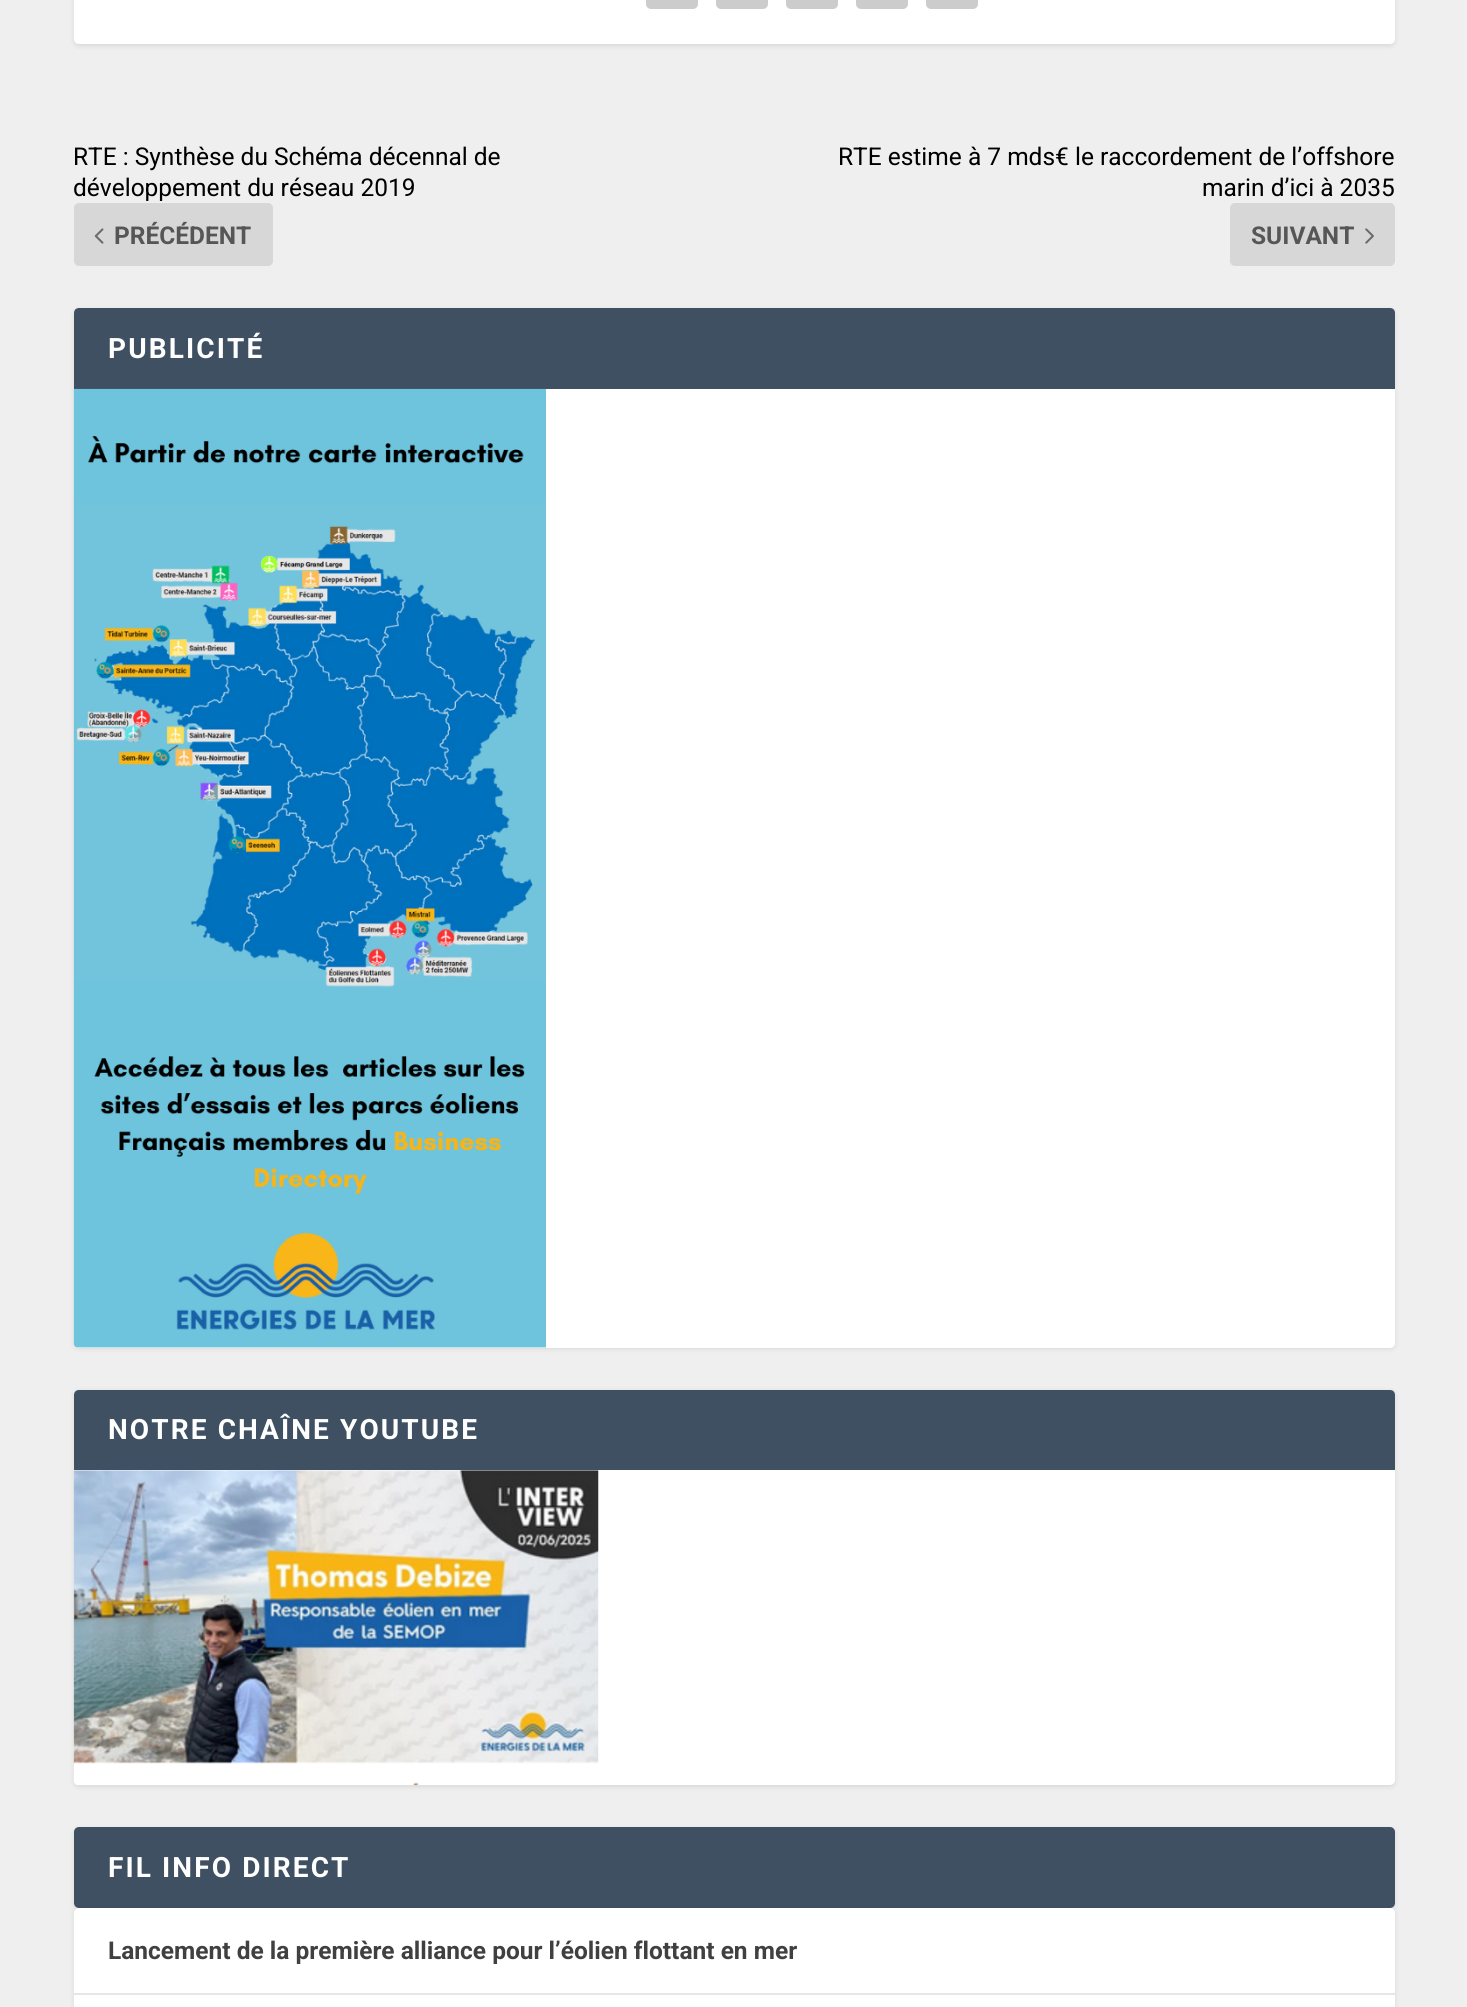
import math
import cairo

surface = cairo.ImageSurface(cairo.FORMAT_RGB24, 1467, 2007)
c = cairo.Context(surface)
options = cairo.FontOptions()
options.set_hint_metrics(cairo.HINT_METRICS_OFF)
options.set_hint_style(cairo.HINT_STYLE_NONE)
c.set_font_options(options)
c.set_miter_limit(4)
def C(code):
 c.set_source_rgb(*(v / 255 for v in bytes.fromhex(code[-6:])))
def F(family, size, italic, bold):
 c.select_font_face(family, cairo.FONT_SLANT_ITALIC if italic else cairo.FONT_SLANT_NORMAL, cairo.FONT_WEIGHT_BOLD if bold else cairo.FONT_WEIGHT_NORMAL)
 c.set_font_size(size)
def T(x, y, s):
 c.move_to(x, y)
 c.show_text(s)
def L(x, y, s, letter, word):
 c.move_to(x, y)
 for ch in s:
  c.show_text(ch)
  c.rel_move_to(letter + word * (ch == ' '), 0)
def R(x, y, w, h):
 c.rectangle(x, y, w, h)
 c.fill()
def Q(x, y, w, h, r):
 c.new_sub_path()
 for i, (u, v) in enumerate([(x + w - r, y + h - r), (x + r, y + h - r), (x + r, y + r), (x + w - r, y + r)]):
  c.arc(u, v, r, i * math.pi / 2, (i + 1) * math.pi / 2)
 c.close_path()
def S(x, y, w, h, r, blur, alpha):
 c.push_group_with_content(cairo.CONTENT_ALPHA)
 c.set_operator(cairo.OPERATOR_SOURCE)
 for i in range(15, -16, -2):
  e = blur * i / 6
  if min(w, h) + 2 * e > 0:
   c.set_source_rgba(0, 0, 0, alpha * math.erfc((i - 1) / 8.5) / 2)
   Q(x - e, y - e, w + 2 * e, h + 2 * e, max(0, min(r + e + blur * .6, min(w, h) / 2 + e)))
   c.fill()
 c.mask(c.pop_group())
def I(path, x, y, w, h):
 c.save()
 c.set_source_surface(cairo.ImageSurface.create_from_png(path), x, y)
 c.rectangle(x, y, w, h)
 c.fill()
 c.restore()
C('efefef')
c.paint()
C('000000')
S(74,-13,1321,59,5,2.5,.1)
C('ffffff')
Q(74,-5,1321,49,5)
c.fill()
C('cccccc')
Q(646,-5,52,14,5)
c.fill()
Q(716,-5,52,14,5)
c.fill()
Q(786,-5,52,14,5)
c.fill()
Q(856,-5,52,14,5)
c.fill()
Q(926,-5,52,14,5)
c.fill()
F('Roboto',24.5,0,0)
C('000000')
T(73,165,'RTE : Synthèse du Schéma décennal de')
T(73,196,'développement du réseau 2019')
C('d7d7d7')
Q(74,203,199,63,5)
c.fill()
I('1.png',94,228,10,16)
F('Roboto',24.5,0,1)
C('565656')
T(114,244,'PRÉCÉDENT')
F('Roboto',24.5,0,0)
C('000000')
T(838,165,'RTE estime à 7 mds€ le raccordement de l’offshore')
T(1202,196,'marin d’ici à 2035')
C('d7d7d7')
Q(1230,203,165,63,5)
c.fill()
F('Roboto',24.5,0,1)
C('565656')
T(1251,244,'SUIVANT')
I('2.png',1365,228,9,16)
C('000000')
S(74,310,1321,1039,5,2.5,.1)
C('ffffff')
Q(74,308,1321,1040,5)
c.fill()
C('3e5062')
c.new_path()
c.move_to(79,308)
c.line_to(1390,308)
c.curve_to(1393,308,1395,310,1395,313)
c.line_to(1395,389)
c.line_to(74,389)
c.line_to(74,313)
c.curve_to(74,310,76,308,79,308)
c.close_path()
c.fill()
F('Roboto',28,0,1)
C('ffffff')
L(108,358,'PUBLICITÉ',2.1,0)
I('3.png',73,388,473,960)
C('000000')
S(74,1391,1321,396,5,2.5,.1)
C('ffffff')
Q(74,1390,1321,395,5)
c.fill()
C('3e5062')
c.new_path()
c.move_to(79,1390)
c.line_to(1390,1390)
c.curve_to(1393,1390,1395,1392,1395,1395)
c.line_to(1395,1470)
c.line_to(74,1470)
c.line_to(74,1395)
c.curve_to(74,1392,76,1390,79,1390)
c.close_path()
c.fill()
C('ffffff')
L(108,1439,'NOTRE CHAÎNE YOUTUBE',2.1,0)
I('4.png',73,1470,526,316)
C('000000')
S(74,1829,1321,80,5,2.5,.1)
C('3e5062')
Q(74,1827,1321,81,5)
c.fill()
C('ffffff')
L(108,1877,'FIL INFO DIRECT',2.1,0)
C('000000')
S(74,1909,1321,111,5,2.5,.1)
C('ffffff')
Q(74,1908,1321,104,5)
c.fill()
C('e6e6e6')
R(74,1993,1321,2)
F('Roboto',24.5,0,1)
C('404040')
T(108,1959,'Lancement de la première alliance pour l’éolien flottant en mer')
surface.write_to_png('o.png')
